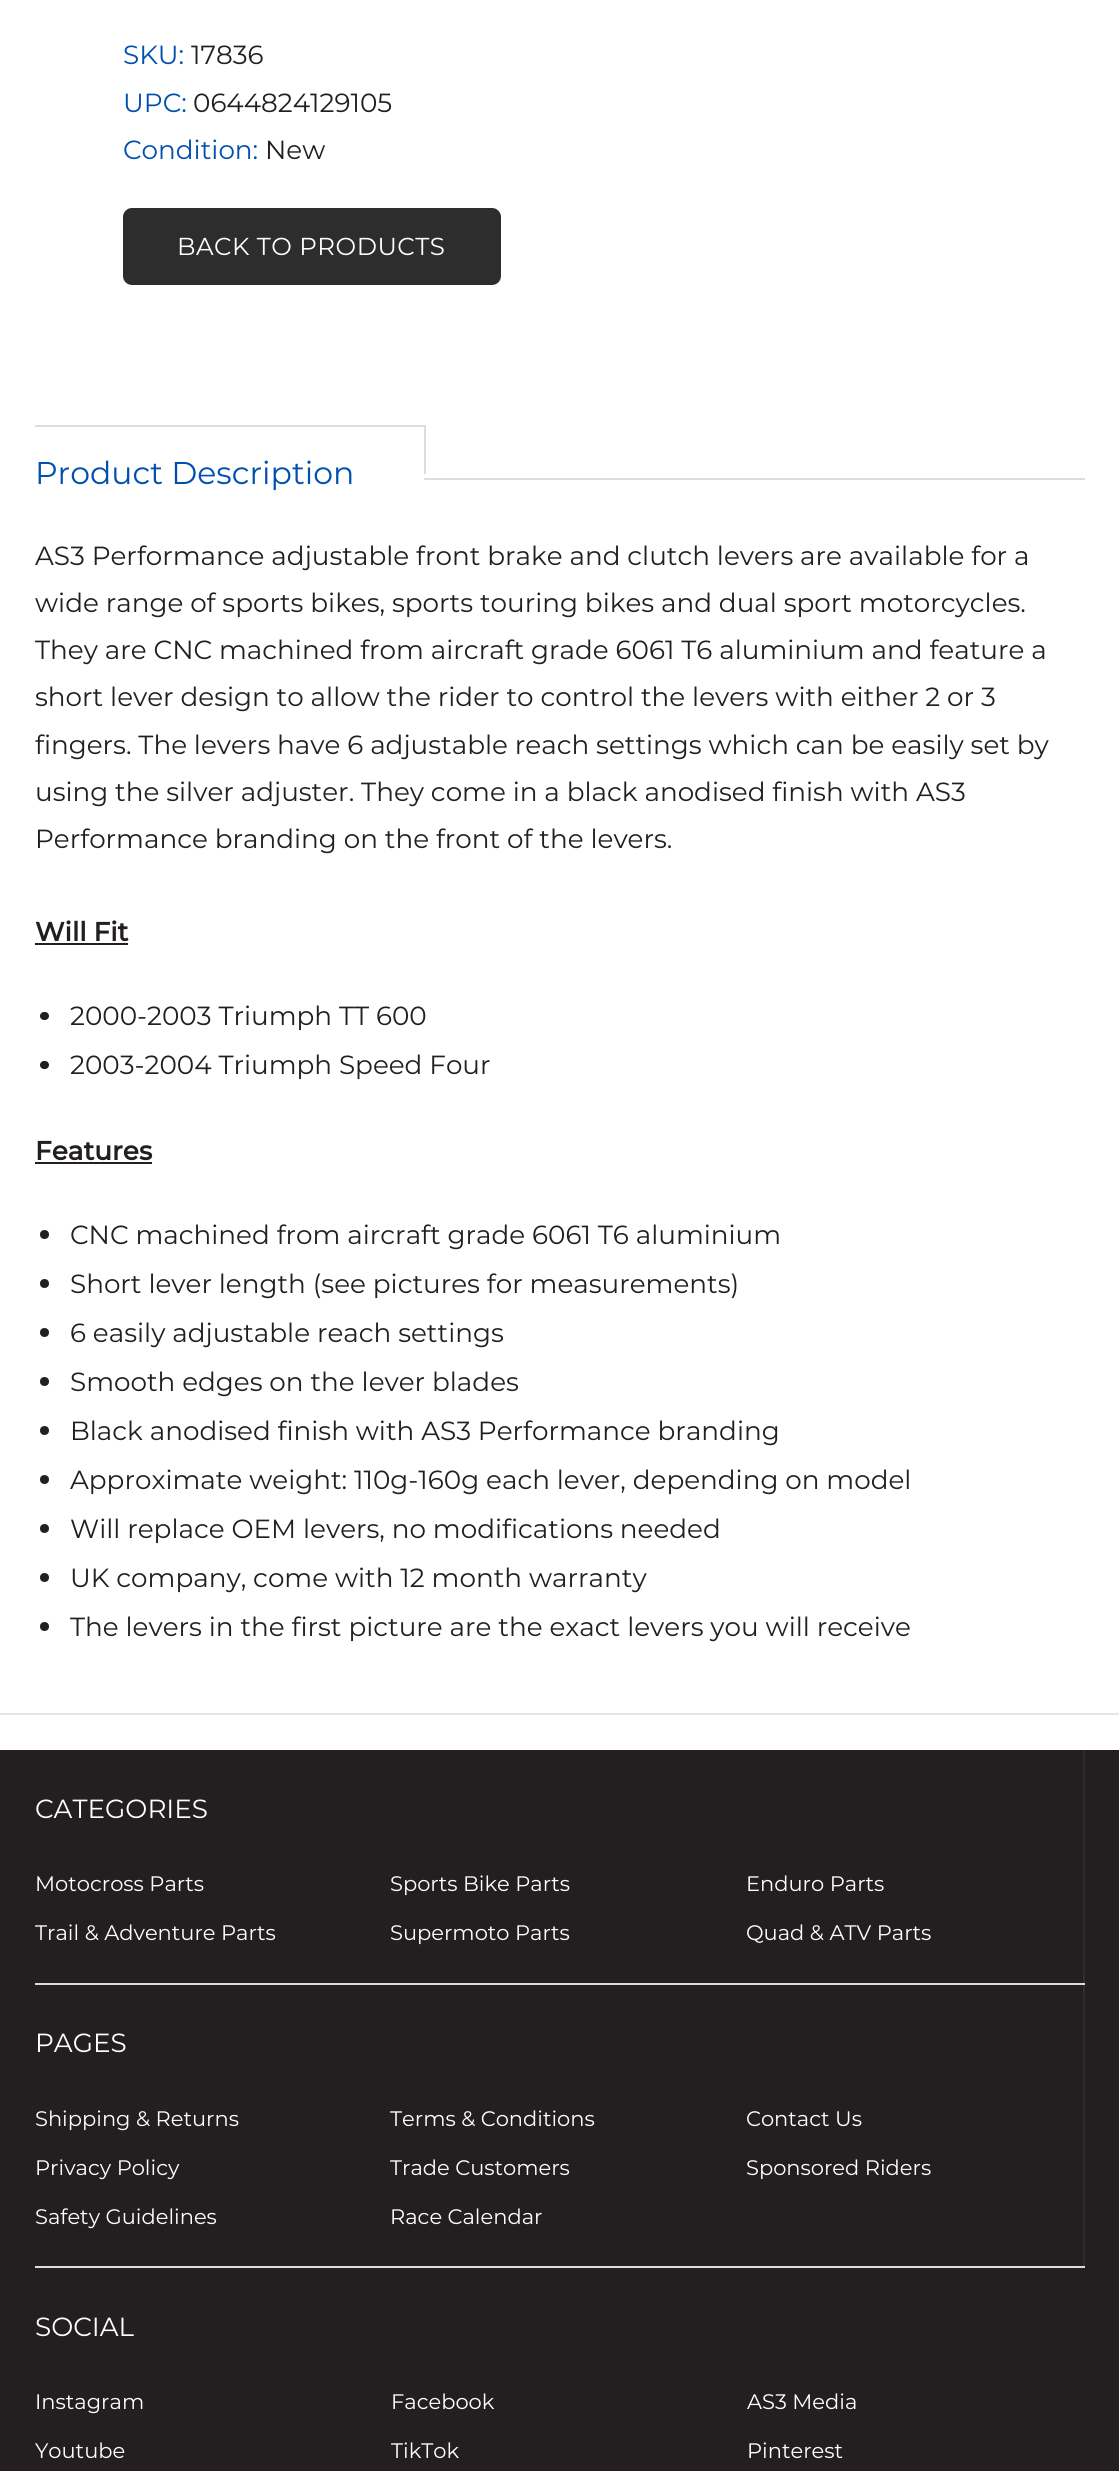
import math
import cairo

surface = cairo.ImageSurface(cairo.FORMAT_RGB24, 1119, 2471)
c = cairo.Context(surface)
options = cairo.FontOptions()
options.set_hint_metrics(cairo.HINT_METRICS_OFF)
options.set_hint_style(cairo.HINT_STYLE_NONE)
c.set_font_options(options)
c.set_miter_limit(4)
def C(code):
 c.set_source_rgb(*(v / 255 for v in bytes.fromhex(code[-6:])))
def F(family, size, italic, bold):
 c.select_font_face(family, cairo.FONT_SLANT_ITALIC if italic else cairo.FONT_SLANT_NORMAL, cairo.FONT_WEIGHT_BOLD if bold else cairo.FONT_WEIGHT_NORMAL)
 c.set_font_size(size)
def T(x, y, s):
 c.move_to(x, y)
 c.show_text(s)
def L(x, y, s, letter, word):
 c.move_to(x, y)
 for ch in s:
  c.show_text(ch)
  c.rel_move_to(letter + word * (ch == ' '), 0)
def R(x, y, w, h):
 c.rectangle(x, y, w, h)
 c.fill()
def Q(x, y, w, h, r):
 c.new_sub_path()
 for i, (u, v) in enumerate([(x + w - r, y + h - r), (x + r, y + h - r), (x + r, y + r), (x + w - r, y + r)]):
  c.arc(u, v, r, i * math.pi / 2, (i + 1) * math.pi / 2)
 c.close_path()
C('ffffff')
c.paint()
F('Montserrat Thin',26.25,0,0)
C('0050af')
T(123,64,'SKU:')
C('231f20')
T(191,64,'17836')
C('0050af')
T(123,112,'UPC:')
C('231f20')
T(193,112,'0644824129105')
C('0050af')
T(123,159,'Condition:')
C('231f20')
T(265,159,'New')
C('2d2d2d')
Q(124,209,376,75,8)
c.fill_preserve()
c.stroke()
F('Montserrat Thin',24.5,0,0)
C('ffffff')
L(177,255,'BACK TO PRODUCTS',.5,0)
C('dddddd')
R(35,425,390,2)
R(424,425,2,49)
F('Montserrat Thin',31.5,0,0)
C('0050af')
T(35,484,'Product Description')
C('dddddd')
R(424,478,661,2)
F('Montserrat Thin',26.25,0,0)
C('231f20')
T(35,565,'AS3 Performance adjustable front brake and clutch levers are available for a')
T(35,612,'wide range of sports bikes, sports touring bikes and dual sport motorcycles.')
T(35,659,'They are CNC machined from aircraft grade 6061 T6 aluminium and feature a')
T(35,706,'short lever design to allow the rider to control the levers with either 2 or 3')
T(35,754,'fingers. The levers have 6 adjustable reach settings which can be easily set by')
T(35,801,'using the silver adjuster. They come in a black anodised finish with AS3')
T(35,848,'Performance branding on the front of the levers.')
F('Montserrat',26.25,0,1)
T(35,941,'Will Fit')
R(35,943,93,2)
Q(40,1012,9,8,4)
c.fill()
F('Montserrat Thin',26.25,0,0)
T(70,1025,'2000-2003 Triumph TT 600')
Q(40,1061,9,8,4)
c.fill()
T(70,1074,'2003-2004 Triumph Speed Four')
F('Montserrat',26.25,0,1)
T(35,1160,'Features')
R(35,1162,117,2)
c.new_path()
c.arc(44.5,1234.5,4.5,0,2 * math.pi)
c.fill()
F('Montserrat Thin',26.25,0,0)
T(70,1244,'CNC machined from aircraft grade 6061 T6 aluminium')
c.new_path()
c.arc(44.5,1283.5,4.5,0,2 * math.pi)
c.fill()
T(70,1293,'Short lever length (see pictures for measurements)')
c.new_path()
c.arc(44.5,1332.5,4.5,0,2 * math.pi)
c.fill()
T(70,1342,'6 easily adjustable reach settings')
c.new_path()
c.arc(44.5,1381.5,4.5,0,2 * math.pi)
c.fill()
T(70,1391,'Smooth edges on the lever blades')
c.new_path()
c.arc(44.5,1430.5,4.5,0,2 * math.pi)
c.fill()
T(70,1440,'Black anodised finish with AS3 Performance branding')
c.new_path()
c.arc(44.5,1479.5,4.5,0,2 * math.pi)
c.fill()
T(70,1489,'Approximate weight: 110g-160g each lever, depending on model')
c.new_path()
c.arc(44.5,1528.5,4.5,0,2 * math.pi)
c.fill()
T(70,1538,'Will replace OEM levers, no modifications needed')
c.new_path()
c.arc(44.5,1577.5,4.5,0,2 * math.pi)
c.fill()
T(70,1587,'UK company, come with 12 month warranty')
c.new_path()
c.arc(44.5,1626.5,4.5,0,2 * math.pi)
c.fill()
T(70,1636,'The levers in the first picture are the exact levers you will receive')
C('e6e6e6')
R(0,1713,1119,2)
C('231f20')
R(0,1750,1119,721)
C('2d2d2d')
R(1083,1750,2,518)
C('dddddd')
R(35,1983,1050,2)
C('ffffff')
T(35,1818,'CATEGORIES')
F('Montserrat Thin',21,0,0)
T(35,1891,'Motocross Parts')
T(390,1891,'Sports Bike Parts')
T(746,1891,'Enduro Parts')
T(35,1940,'Trail & Adventure Parts')
T(390,1940,'Supermoto Parts')
T(746,1940,'Quad & ATV Parts')
C('dddddd')
R(35,2266,1050,2)
F('Montserrat Thin',26.25,0,0)
C('ffffff')
T(35,2052,'PAGES')
F('Montserrat Thin',21,0,0)
T(35,2126,'Shipping & Returns')
T(390,2126,'Terms & Conditions')
T(746,2126,'Contact Us')
T(35,2175,'Privacy Policy')
T(390,2175,'Trade Customers')
T(746,2175,'Sponsored Riders')
T(35,2224,'Safety Guidelines')
T(390,2224,'Race Calendar')
F('Montserrat Thin',26.25,0,0)
T(35,2336,'SOCIAL')
F('Montserrat Thin',21,0,0)
T(35,2409,'Instagram')
T(391,2409,'Facebook')
T(747,2409,'AS3 Media')
T(35,2458,'Youtube')
T(391,2458,'TikTok')
T(747,2458,'Pinterest')
surface.write_to_png('o.png')
